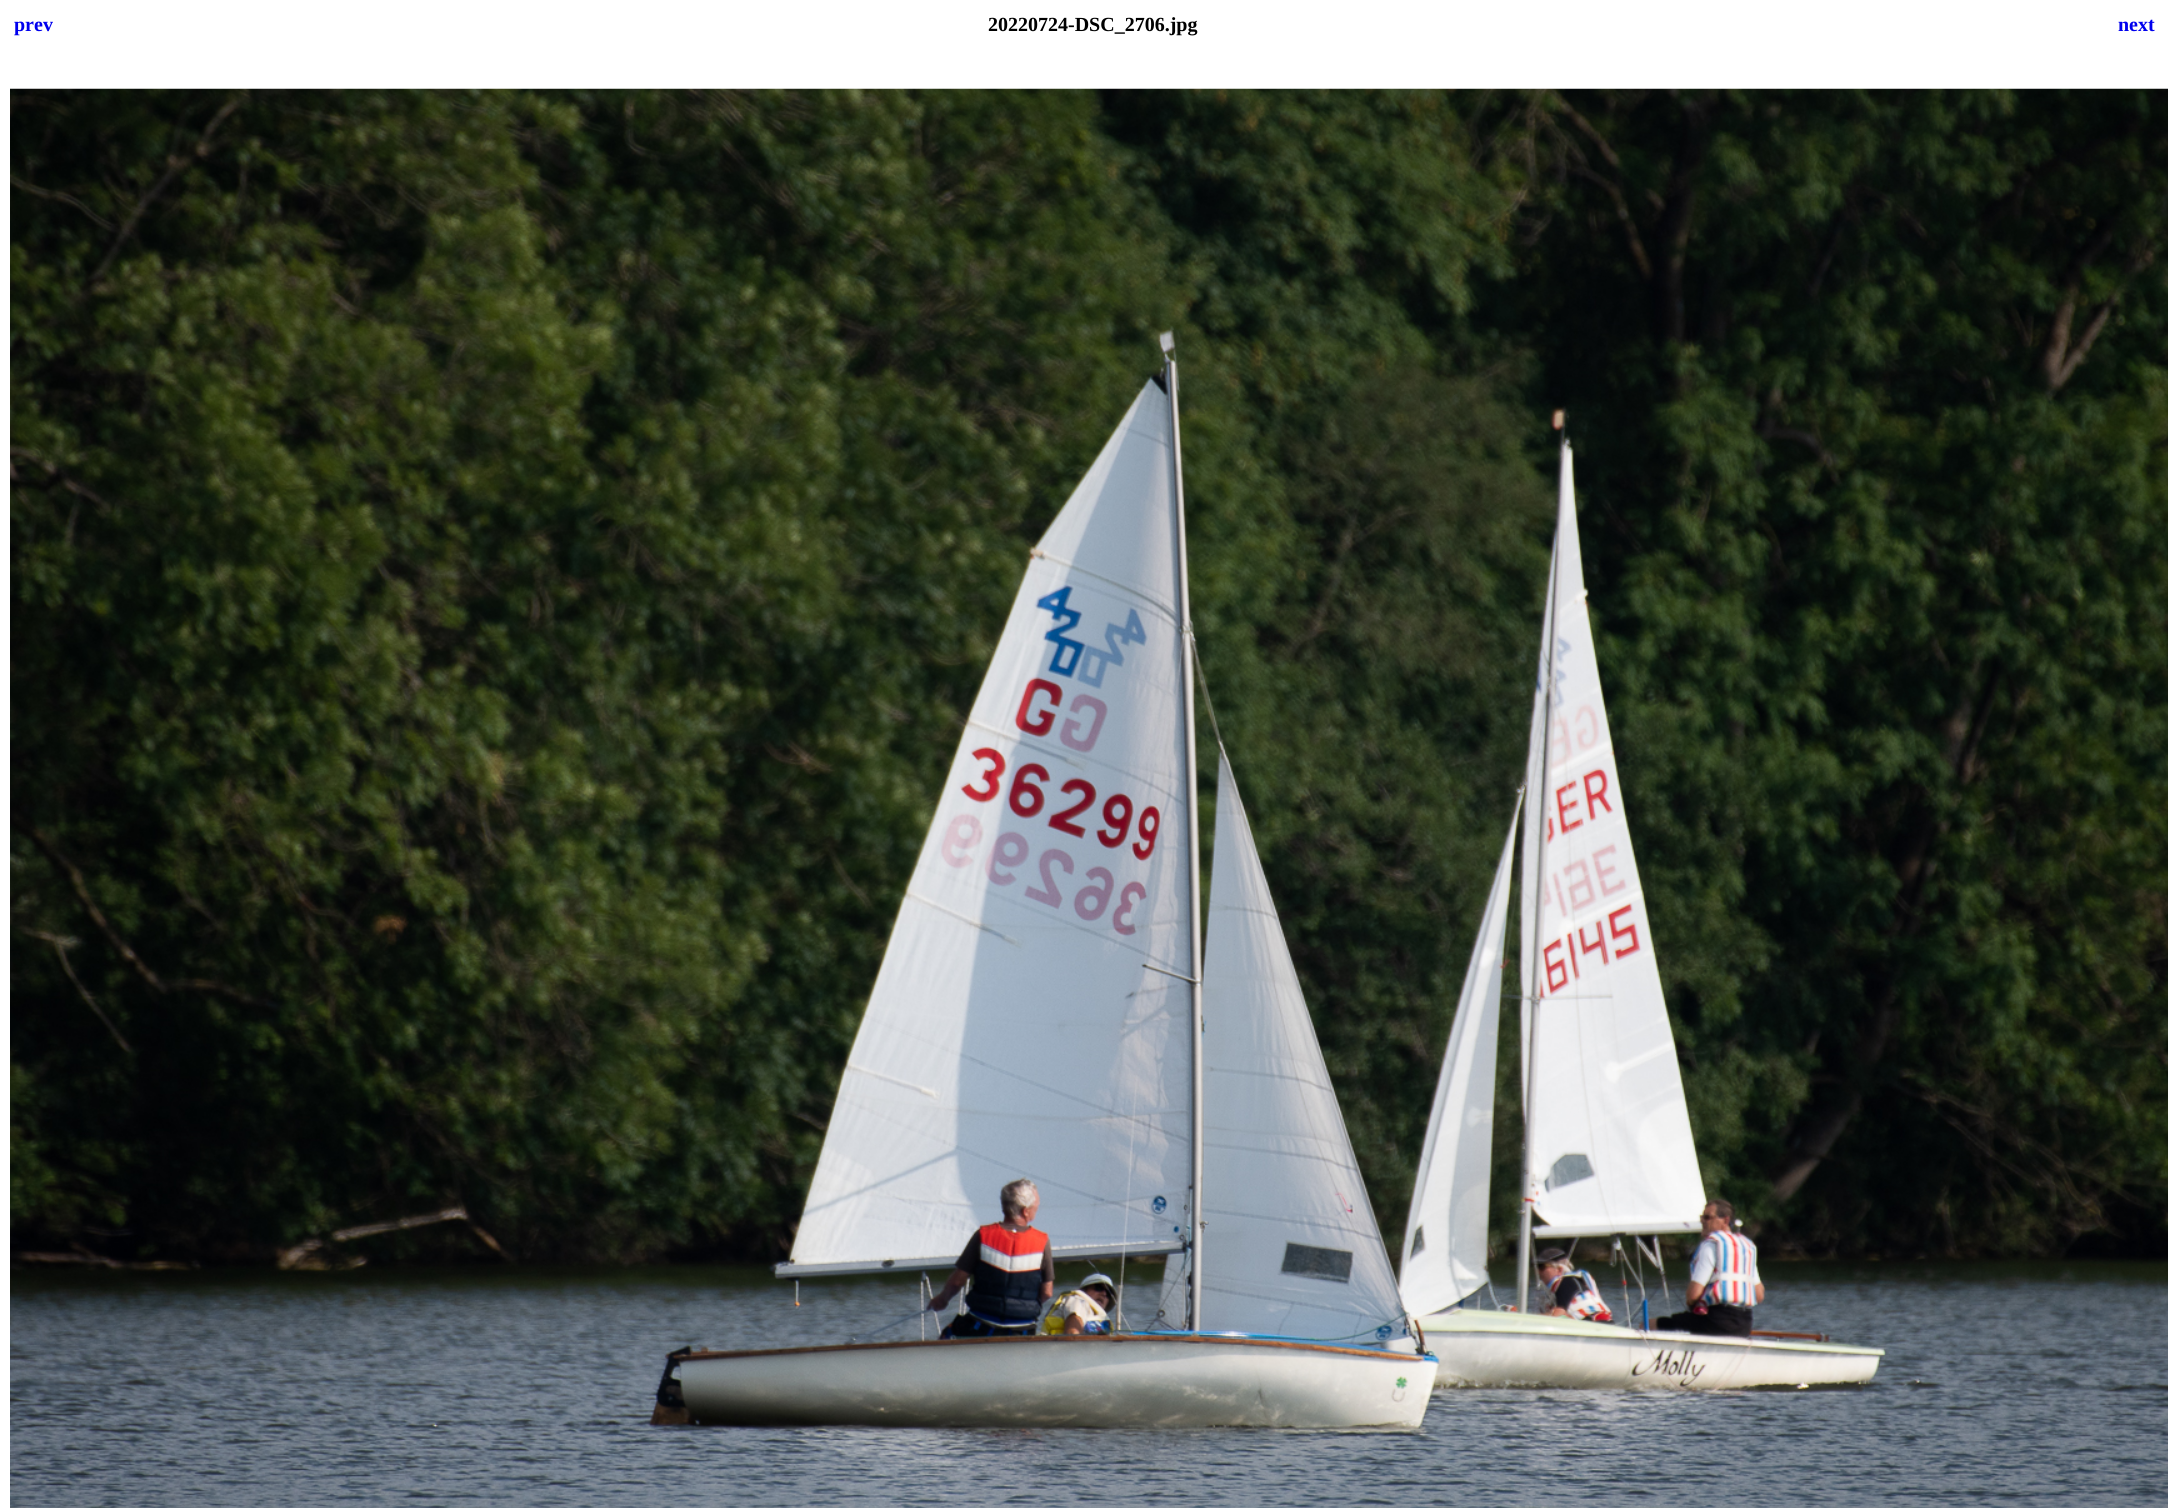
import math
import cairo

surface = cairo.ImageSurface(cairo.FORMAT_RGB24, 2168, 1508)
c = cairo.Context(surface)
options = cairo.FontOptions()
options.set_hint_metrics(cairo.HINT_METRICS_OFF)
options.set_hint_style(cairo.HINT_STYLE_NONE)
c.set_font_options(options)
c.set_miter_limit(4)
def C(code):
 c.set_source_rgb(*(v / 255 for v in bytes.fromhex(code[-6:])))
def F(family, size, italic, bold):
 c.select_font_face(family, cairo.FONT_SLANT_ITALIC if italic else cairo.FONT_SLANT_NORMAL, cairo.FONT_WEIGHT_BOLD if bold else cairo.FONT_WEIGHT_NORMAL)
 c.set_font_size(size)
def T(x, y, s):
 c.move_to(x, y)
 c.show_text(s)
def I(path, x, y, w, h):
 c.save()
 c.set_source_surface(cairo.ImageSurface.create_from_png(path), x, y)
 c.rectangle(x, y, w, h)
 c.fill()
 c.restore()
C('ffffff')
c.paint()
F('Liberation Serif',20,0,1)
C('0000ee')
T(14,31,'prev')
C('000000')
T(988,31,'20220724-DSC_2706.jpg')
C('0000ee')
T(2118,31,'next')
I('1.png',10,88,2158,1420)
surface.write_to_png('o.png')
